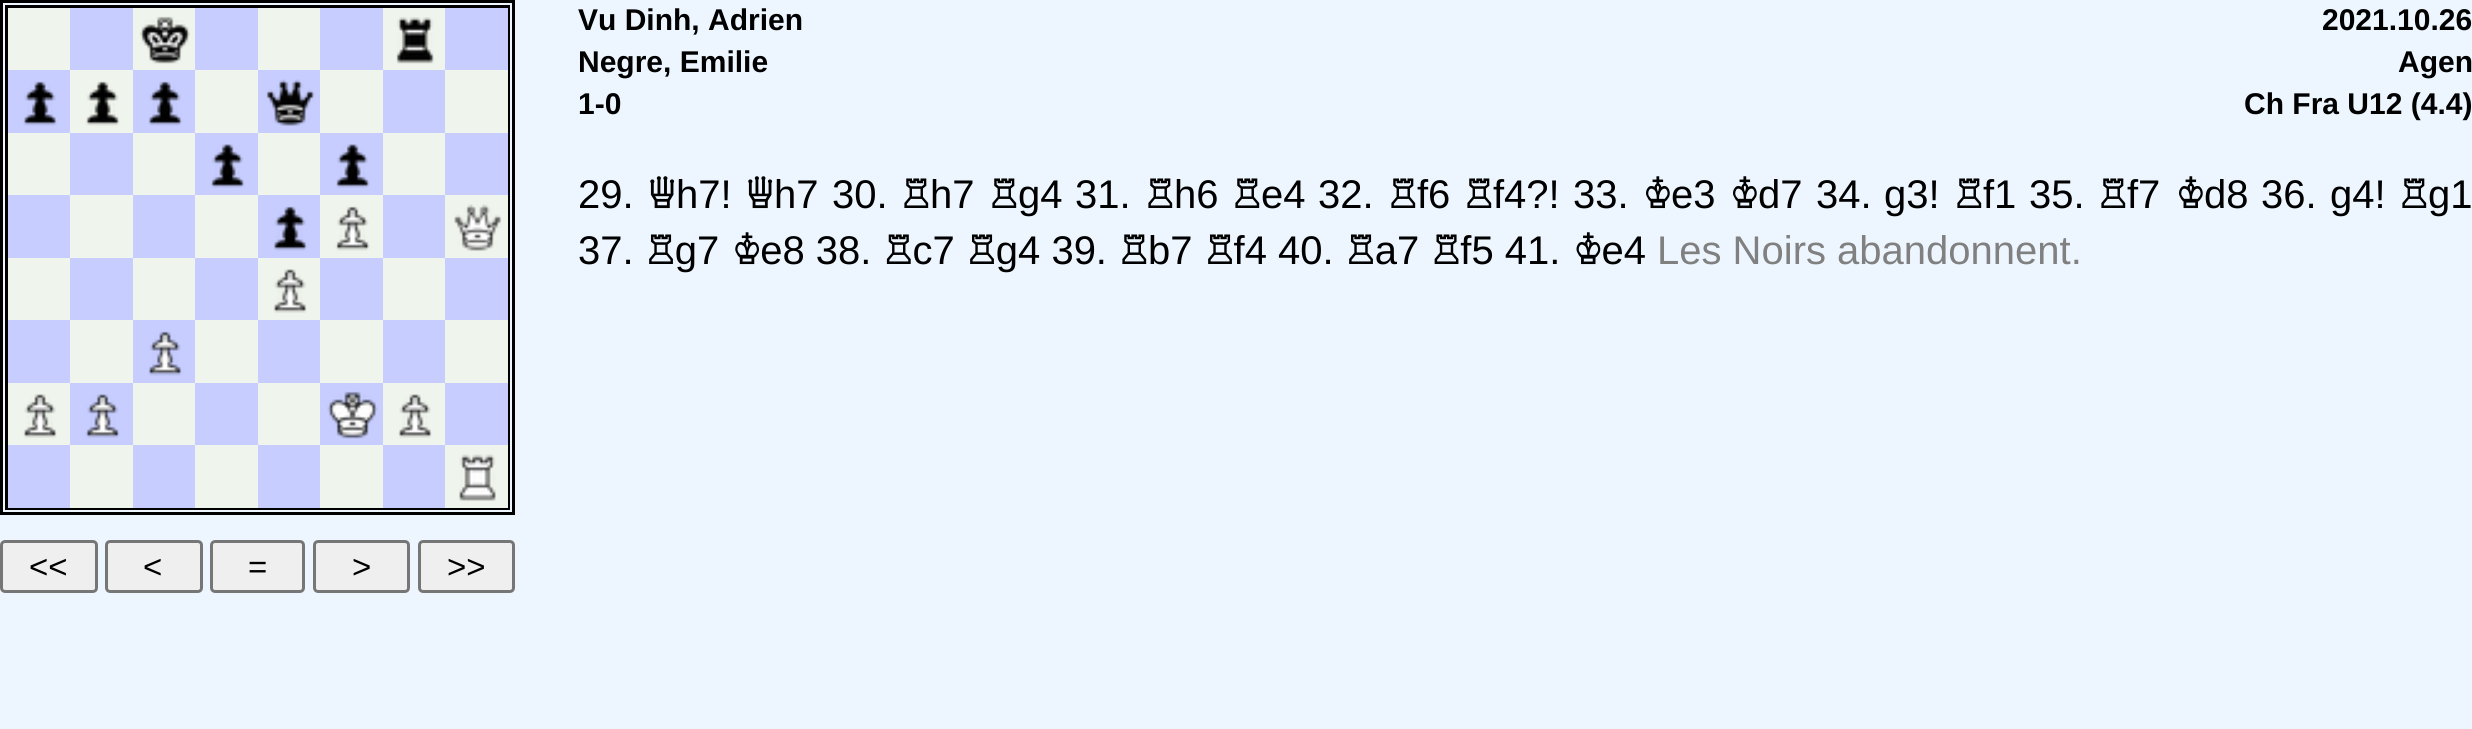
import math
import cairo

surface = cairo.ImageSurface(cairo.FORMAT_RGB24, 2472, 729)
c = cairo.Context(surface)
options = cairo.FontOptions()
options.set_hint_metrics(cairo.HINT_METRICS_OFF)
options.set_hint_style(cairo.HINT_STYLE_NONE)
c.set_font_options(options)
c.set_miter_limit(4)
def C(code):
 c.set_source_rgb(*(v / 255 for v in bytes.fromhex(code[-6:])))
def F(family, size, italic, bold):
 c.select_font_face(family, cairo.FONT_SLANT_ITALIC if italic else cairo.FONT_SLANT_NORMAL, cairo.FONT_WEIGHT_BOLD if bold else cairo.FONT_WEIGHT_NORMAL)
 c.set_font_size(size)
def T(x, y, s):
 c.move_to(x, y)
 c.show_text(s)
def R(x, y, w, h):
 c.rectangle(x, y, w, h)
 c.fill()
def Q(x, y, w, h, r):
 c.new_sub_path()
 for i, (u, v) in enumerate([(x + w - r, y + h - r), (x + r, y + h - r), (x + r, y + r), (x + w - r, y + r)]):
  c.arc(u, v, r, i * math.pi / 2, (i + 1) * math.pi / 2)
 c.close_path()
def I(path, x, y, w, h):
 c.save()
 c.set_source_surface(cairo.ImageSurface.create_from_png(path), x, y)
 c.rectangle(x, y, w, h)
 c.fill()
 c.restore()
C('edf6ff')
c.paint()
F('Liberation Sans',30,0,1)
C('000000')
T(578,30,'Vu Dinh, Adrien')
T(2322,30,'2021.10.26')
T(578,72,'Negre, Emilie')
T(2398,72,'Agen')
T(578,114,'1-0')
T(2244,114,'Ch Fra U12 (4.4)')
F('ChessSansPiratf',40,0,0)
T(578,208,'29.')
T(646,208,'Qh7!')
T(744,208,'Qh7')
T(832,208,'30.')
T(900,208,'Rh7')
T(988,208,'Rg4')
T(1075,208,'31.')
T(1144,208,'Rh6')
T(1231,208,'Re4')
T(1318,208,'32.')
T(1387,208,'Rf6')
T(1463,208,'Rf4?!')
T(1573,208,'33.')
T(1641,208,'Ke3')
T(1728,208,'Kd7')
T(1816,208,'34.')
T(1884,208,'g3!')
T(1953,208,'Rf1')
T(2029,208,'35.')
T(2097,208,'Rf7')
T(2174,208,'Kd8')
T(2261,208,'36.')
T(2330,208,'g4!')
T(2398,208,'Rg1')
T(578,264,'37. Rg7 Ke8 38. Rc7 Rg4 39. Rb7 Rf4 40. Ra7 Rf5 41. Ke4')
F('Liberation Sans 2',40,0,0)
C('808080')
T(1657,264,'Les Noirs abandonnent.')
c.rectangle(1.5,1.5,512,512)
C('000000')
c.set_line_width(3)
c.stroke()
c.rectangle(6.5,6.5,502,502)
c.stroke()
C('eff4ec')
R(8,8,62,62)
C('c7ceff')
R(70,8,63,62)
C('eff4ec')
R(133,8,62,62)
I('1.png',140,16,50,48)
C('c7ceff')
R(195,8,63,62)
C('eff4ec')
R(258,8,62,62)
C('c7ceff')
R(320,8,63,62)
C('eff4ec')
R(383,8,62,62)
I('2.png',396,17,38,47)
C('c7ceff')
R(445,8,63,62)
R(8,70,62,63)
I('3.png',23,81,35,45)
C('eff4ec')
R(70,70,63,63)
I('4.png',85,81,35,45)
C('c7ceff')
R(133,70,62,63)
I('3.png',148,81,35,45)
C('eff4ec')
R(195,70,63,63)
C('c7ceff')
R(258,70,62,63)
I('5.png',266,79,49,47)
C('eff4ec')
R(320,70,63,63)
C('c7ceff')
R(383,70,62,63)
C('eff4ec')
R(445,70,63,63)
R(8,133,62,62)
C('c7ceff')
R(70,133,63,62)
C('eff4ec')
R(133,133,62,62)
C('c7ceff')
R(195,133,63,62)
I('6.png',210,144,35,44)
C('eff4ec')
R(258,133,62,62)
C('c7ceff')
R(320,133,63,62)
I('6.png',335,144,35,44)
C('eff4ec')
R(383,133,62,62)
C('c7ceff')
R(445,133,63,62)
R(8,195,62,63)
C('eff4ec')
R(70,195,63,63)
C('c7ceff')
R(133,195,62,63)
C('eff4ec')
R(195,195,63,63)
C('c7ceff')
R(258,195,62,63)
I('7.png',273,206,35,45)
C('eff4ec')
R(320,195,63,63)
I('8.png',335,206,35,45)
C('c7ceff')
R(383,195,62,63)
C('eff4ec')
R(445,195,63,63)
I('9.png',454,204,48,47)
R(8,258,62,62)
C('c7ceff')
R(70,258,63,62)
C('eff4ec')
R(133,258,62,62)
C('c7ceff')
R(195,258,63,62)
C('eff4ec')
R(258,258,62,62)
I('10.png',273,269,34,44)
C('c7ceff')
R(320,258,63,62)
C('eff4ec')
R(383,258,62,62)
C('c7ceff')
R(445,258,63,62)
R(8,320,62,63)
C('eff4ec')
R(70,320,63,63)
C('c7ceff')
R(133,320,62,63)
I('11.png',148,331,35,45)
C('eff4ec')
R(195,320,63,63)
C('c7ceff')
R(258,320,62,63)
C('eff4ec')
R(320,320,63,63)
C('c7ceff')
R(383,320,62,63)
C('eff4ec')
R(445,320,63,63)
R(8,383,62,62)
I('12.png',23,394,34,44)
C('c7ceff')
R(70,383,63,62)
I('13.png',85,394,35,44)
C('eff4ec')
R(133,383,62,62)
C('c7ceff')
R(195,383,63,62)
C('eff4ec')
R(258,383,62,62)
C('c7ceff')
R(320,383,63,62)
I('14.png',327,391,51,48)
C('eff4ec')
R(383,383,62,62)
I('12.png',398,394,34,44)
C('c7ceff')
R(445,383,63,62)
R(8,445,62,63)
C('eff4ec')
R(70,445,63,63)
C('c7ceff')
R(133,445,62,63)
C('eff4ec')
R(195,445,63,63)
C('c7ceff')
R(258,445,62,63)
C('eff4ec')
R(320,445,63,63)
C('c7ceff')
R(383,445,62,63)
C('eff4ec')
R(445,445,63,63)
I('15.png',459,454,37,47)
C('efefef')
Q(1.5,541.5,95,50,3.5)
c.fill_preserve()
C('767676')
c.stroke()
F('Liberation Sans',33,0,0)
C('000000')
T(29,578,'<<')
C('efefef')
Q(106.5,541.5,95,50,3.5)
c.fill_preserve()
C('767676')
c.stroke()
C('000000')
T(143,578,'<')
C('efefef')
Q(211.5,541.5,92,50,3.5)
c.fill_preserve()
C('767676')
c.stroke()
C('000000')
T(248,578,'=')
C('efefef')
Q(314.5,541.5,94,50,3.5)
c.fill_preserve()
C('767676')
c.stroke()
C('000000')
T(352,578,'>')
C('efefef')
Q(419.5,541.5,94,50,3.5)
c.fill_preserve()
C('767676')
c.stroke()
C('000000')
T(447,578,'>>')
surface.write_to_png('o.png')
